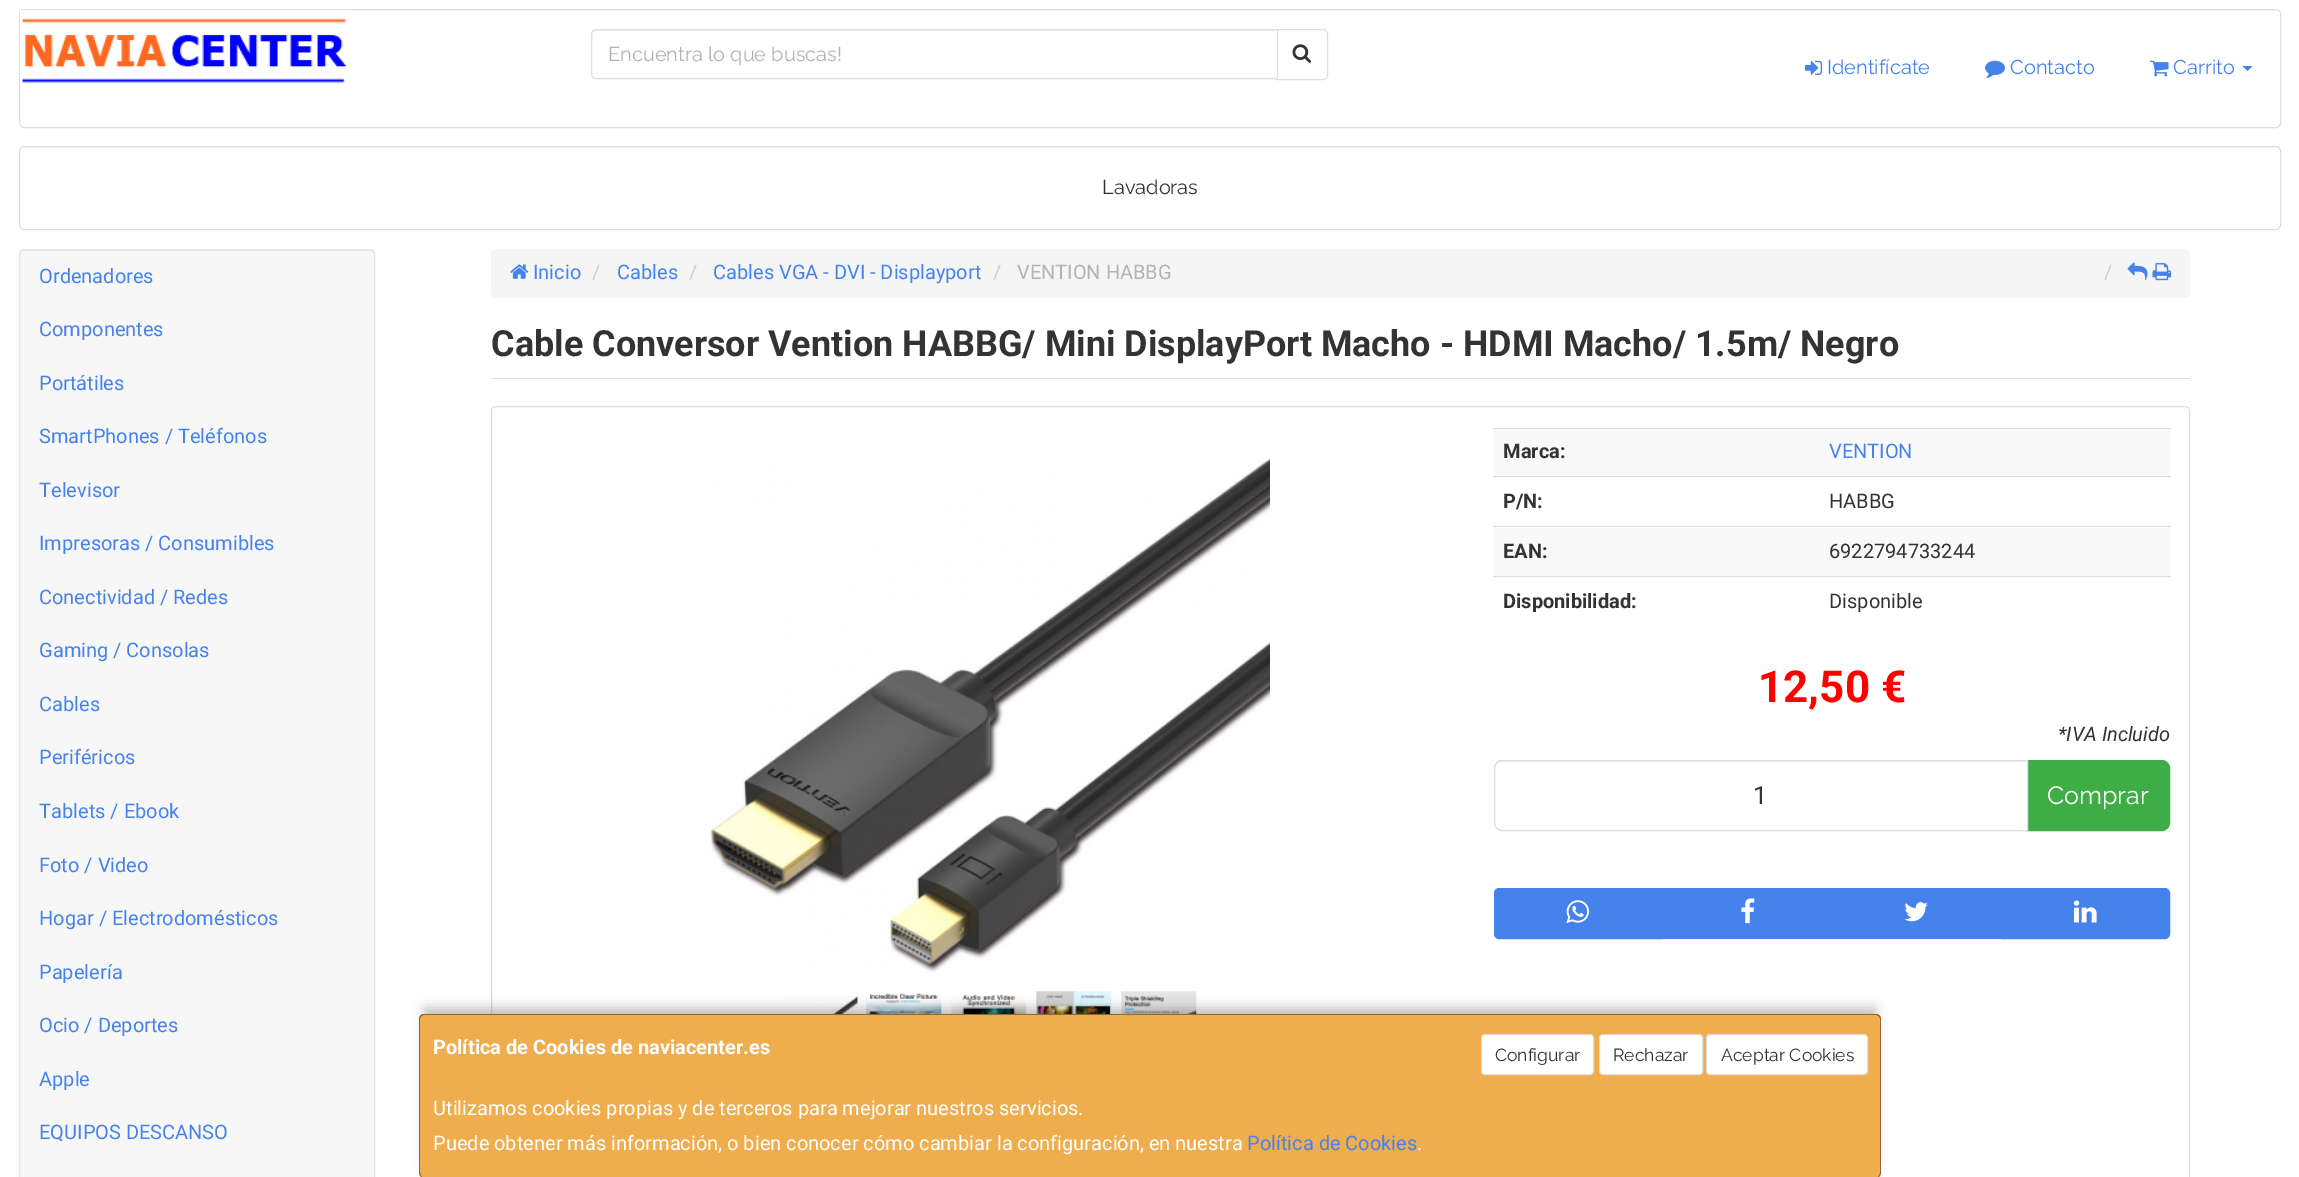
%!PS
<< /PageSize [2299 1177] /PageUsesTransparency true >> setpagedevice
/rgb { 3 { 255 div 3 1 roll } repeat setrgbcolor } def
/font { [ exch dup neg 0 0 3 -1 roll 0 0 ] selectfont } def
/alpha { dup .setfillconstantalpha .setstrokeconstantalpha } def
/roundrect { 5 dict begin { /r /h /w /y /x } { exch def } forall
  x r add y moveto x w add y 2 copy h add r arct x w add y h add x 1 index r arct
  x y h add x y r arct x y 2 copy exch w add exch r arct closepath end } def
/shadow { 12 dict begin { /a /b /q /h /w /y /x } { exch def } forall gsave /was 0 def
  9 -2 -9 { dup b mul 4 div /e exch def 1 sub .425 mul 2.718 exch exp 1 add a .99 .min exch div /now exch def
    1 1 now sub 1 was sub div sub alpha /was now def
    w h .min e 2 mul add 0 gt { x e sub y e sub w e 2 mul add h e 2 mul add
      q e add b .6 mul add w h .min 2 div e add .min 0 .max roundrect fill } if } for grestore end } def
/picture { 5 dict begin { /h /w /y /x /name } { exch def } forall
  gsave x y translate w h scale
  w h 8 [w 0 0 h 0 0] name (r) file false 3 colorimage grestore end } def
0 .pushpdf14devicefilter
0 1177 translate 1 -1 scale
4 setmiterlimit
255 255 255 rgb
0 0 2299 1177 rectfill
221 221 221 rgb
19.5 9.5 2261 118 4.5 roundrect stroke
(img/1.rgb) 20 10 327 73 picture
1276.5 29.5 moveto 1323 29.5 lineto 1325.5 29.5 1327.5 31.5 1327.5 34 curveto 1327.5 75 lineto 1327.5 77.5 1325.5 79.5 1323 79.5 curveto 1276.5 79.5 lineto closepath stroke
255 255 255 rgb
596 29 moveto 1278 29 lineto 1278 79 lineto 596 79 lineto 593 79 591 77 591 74 curveto 591 34 lineto 591 31 593 29 596 29 curveto closepath fill
236 236 236 rgb
596 31 moveto 1276 31 lineto 1276 30 lineto 597 30 lineto 596 30 594 31 594 32 curveto closepath fill
221 221 221 rgb
596 29.5 moveto 1277.5 29.5 lineto 1277.5 78.5 lineto 596 78.5 lineto 593.5 78.5 591.5 76.5 591.5 74 curveto 591.5 34 lineto 591.5 31.5 593.5 29.5 596 29.5 curveto closepath stroke
(img/2.rgb) 1292 44 20 19 picture
(img/3.rgb) 1805 60 18 15 picture
(img/4.rgb) 1985 60 20 18 picture
(img/5.rgb) 2150 60 19 17 picture
69 130 236 rgb
2242.5 66 moveto 2252.5 66 lineto 2247.5 71 lineto closepath fill
221 221 221 rgb
19.5 146.5 2261 83 4.5 roundrect stroke
247 247 247 rgb
19 249 356 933 5 roundrect fill
235 235 235 rgb
24 251 moveto 370 251 lineto 372 251 374 253 374 255 curveto 374 252 373 250 370 250 curveto 23 250 lineto 21 252 lineto 20 255 lineto 20 253 22 251 24 251 curveto closepath fill
229 229 229 rgb
19.5 249.5 355 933 4.5 roundrect stroke
245 245 245 rgb
491 249 1699 49 5 roundrect fill
(img/6.rgb) 510 264 19 15 picture
(img/7.rgb) 2127 262 21 19 picture
(img/8.rgb) 2152 263 20 18 picture
221 221 221 rgb
491 378 1699 1 rectfill
491.5 406.5 1698 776 4.5 roundrect stroke
(img/9.rgb) 710 458 560 515 picture
(img/10.rgb) 782 996 76 18 picture
(img/11.rgb) 866 993 76 21 picture
(img/12.rgb) 951 994 76 20 picture
(img/13.rgb) 1036 991 76 23 picture
(img/14.rgb) 1121 991 76 23 picture
[
  [1494 429 676 49 249 249 249]
  [1493 428 678 1 221 221 221]
  [1493 476 678 1 221 221 221]
  [1494 528 676 50 249 249 249]
  [1493 526 678 1 221 221 221]
  [1493 576 678 1 221 221 221]
] { aload pop rgb rectfill } forall
63 173 70 rgb
2026.5 760.5 moveto 2162 760.5 lineto 2166 760.5 2169.5 764 2169.5 768 curveto 2169.5 823 lineto 2169.5 827 2166 830.5 2162 830.5 curveto 2026.5 830.5 lineto closepath gsave fill grestore
stroke
255 255 255 rgb
1502 760 moveto 2028 760 lineto 2028 831 lineto 1502 831 lineto 1497.5 831 1494 827.5 1494 823 curveto 1494 768 lineto 1494 763.5 1497.5 760 1502 760 curveto closepath fill
236 236 236 rgb
1501 762 moveto 2026 762 lineto 2026 761 lineto 1501 761 lineto 1496 761 1495 765 1495 769 curveto 1495 765 1498 762 1501 762 curveto closepath fill
221 221 221 rgb
1502 760.5 moveto 2027.5 760.5 lineto 2027.5 830.5 lineto 1502 830.5 lineto 1498 830.5 1494.5 827 1494.5 823 curveto 1494.5 768 lineto 1494.5 764 1498 760.5 1502 760.5 curveto closepath stroke
69 130 236 rgb
1499 888.5 moveto 1662.5 888.5 lineto 1662.5 938.5 lineto 1499 938.5 lineto 1496.5 938.5 1494.5 936.5 1494.5 934 curveto 1494.5 893 lineto 1494.5 890.5 1496.5 888.5 1499 888.5 curveto closepath gsave fill grestore
stroke
(img/15.rgb) 1566 900 24 24 picture
1663 888 338 51 rectfill
(img/16.rgb) 1741 898 14 26 picture
2001.5 888.5 moveto 2165 888.5 lineto 2167.5 888.5 2169.5 890.5 2169.5 893 curveto 2169.5 934 lineto 2169.5 936.5 2167.5 938.5 2165 938.5 curveto 2001.5 938.5 lineto closepath gsave fill grestore
stroke
(img/17.rgb) 2073 900 24 23 picture
(img/18.rgb) 1904 902 24 20 picture
0 0 0 rgb
425 1008 1450 151 0 6 0.25 shadow
240 173 78 rgb
419 1014 1462 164 5 roundrect fill
0.4 alpha
0 0 0 rgb
424 1014 moveto 1876 1014 lineto 1879 1014 1881 1016 1881 1019 curveto 1881 1172 lineto 1881 1175 1879 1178 1876 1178 curveto 424 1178 lineto 421 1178 419 1175 419 1172 curveto 419 1019 lineto 419 1016 421 1014 424 1014 curveto closepath 424 1015 moveto 1876 1015 lineto 1878 1015 1880 1017 1880 1019 curveto 1880 1172 lineto 1880 1175 1878 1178 1876 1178 curveto 424 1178 lineto 422 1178 420 1175 420 1172 curveto 420 1019 lineto 420 1017 422 1015 424 1015 curveto closepath eofill
1 alpha
255 255 255 rgb
1481.5 1034.5 112 40 3.5 roundrect gsave fill grestore
221 221 221 rgb
stroke
255 255 255 rgb
1599.5 1034.5 103 40 3.5 roundrect gsave fill grestore
221 221 221 rgb
stroke
255 255 255 rgb
1706.5 1034.5 161 40 3.5 roundrect gsave fill grestore
221 221 221 rgb
stroke
/Raleway-Regular 20 font
179 179 179 rgb
608 61 moveto (Encuentra lo que buscas!) show
69 130 236 rgb
[
  [(Identifícate) 1827 74]
  [(Contacto) 2010 74]
  [(Carrito) 2173 74]
] { aload pop moveto show } forall
51 51 51 rgb
1102 194 moveto (Lavadoras) show
/Roboto-Regular 20 font
69 130 236 rgb
[
  [(Ordenadores) 39 283]
  [(Componentes) 39 336]
  [(Portátiles) 39 390]
  [(SmartPhones / Teléfonos) 39 443]
  [(Televisor) 39 497]
  [(Impresoras / Consumibles) 39 550]
  [(Conectividad / Redes) 39 604]
  [(Gaming / Consolas) 39 657]
  [(Cables) 39 711]
  [(Periféricos) 39 764]
  [(Tablets / Ebook) 39 818]
  [(Foto / Video) 39 872]
  [(Hogar / Electrodomésticos) 39 925]
  [(Papelería) 39 979]
  [(Ocio / Deportes) 39 1032]
  [(Apple) 39 1086]
  [(EQUIPOS DESCANSO) 39 1139]
  [(Inicio) 533 279]
] { aload pop moveto show } forall
204 204 204 rgb
592 279 moveto (/) show
69 130 236 rgb
617 279 moveto (Cables) show
204 204 204 rgb
689 279 moveto (/) show
69 130 236 rgb
713 279 moveto (Cables VGA - DVI - Displayport) show
204 204 204 rgb
993 279 moveto (/) show
179 179 179 rgb
1017 279 moveto (VENTION HABBG) show
204 204 204 rgb
2104 279 moveto (/) show
/Roboto-Bold 36 font
51 51 51 rgb
491 356 moveto (Cable Conversor Vention HABBG/ Mini DisplayPort Macho - HDMI Macho/ 1.5m/ Negro) show
/Roboto-Bold 20 font
1503 458 moveto (Marca:) show
/Roboto-Regular 20 font
69 130 236 rgb
1829 458 moveto (VENTION) show
/Roboto-Bold 20 font
51 51 51 rgb
1503 508 moveto (P/N:) show
/Roboto-Regular 20 font
1829 508 moveto (HABBG) show
/Roboto-Bold 20 font
1503 558 moveto (EAN:) show
/Roboto-Regular 20 font
1829 558 moveto (6922794733244) show
/Roboto-Bold 20 font
1503 608 moveto (Disponibilidad:) show
/Roboto-Regular 20 font
1829 608 moveto (Disponible) show
/Roboto-Bold 44 font
255 0 0 rgb
1758 702 moveto (12,50 €) show
/Roboto-Italic 20 font
51 51 51 rgb
2058 741 moveto (*IVA Incluido) show
/Roboto-Regular 25 font
1753 804 moveto (1) show
/Raleway-Regular 25 font
255 255 255 rgb
2047 804 moveto (Comprar) show
/Roboto-Bold 20 font
433 1054 moveto (Política de Cookies de naviacenter.es) show
/Raleway-Regular 17.5 font
51 51 51 rgb
[
  [(Configurar) 1495 1061]
  [(Rechazar) 1613 1061]
  [(Aceptar Cookies) 1721 1061]
] { aload pop moveto show } forall
/Roboto-Regular 20 font
255 255 255 rgb
433 1115 moveto (Utilizamos cookies propias y de terceros para mejorar nuestros servicios.) show
433 1150 moveto (Puede obtener más información, o bien conocer cómo cambiar la configuración, en nuestra) show
69 130 236 rgb
1247 1150 moveto (Política de Cookies) show
255 255 255 rgb
1417 1150 moveto (.) show
.poppdf14devicefilter showpage
